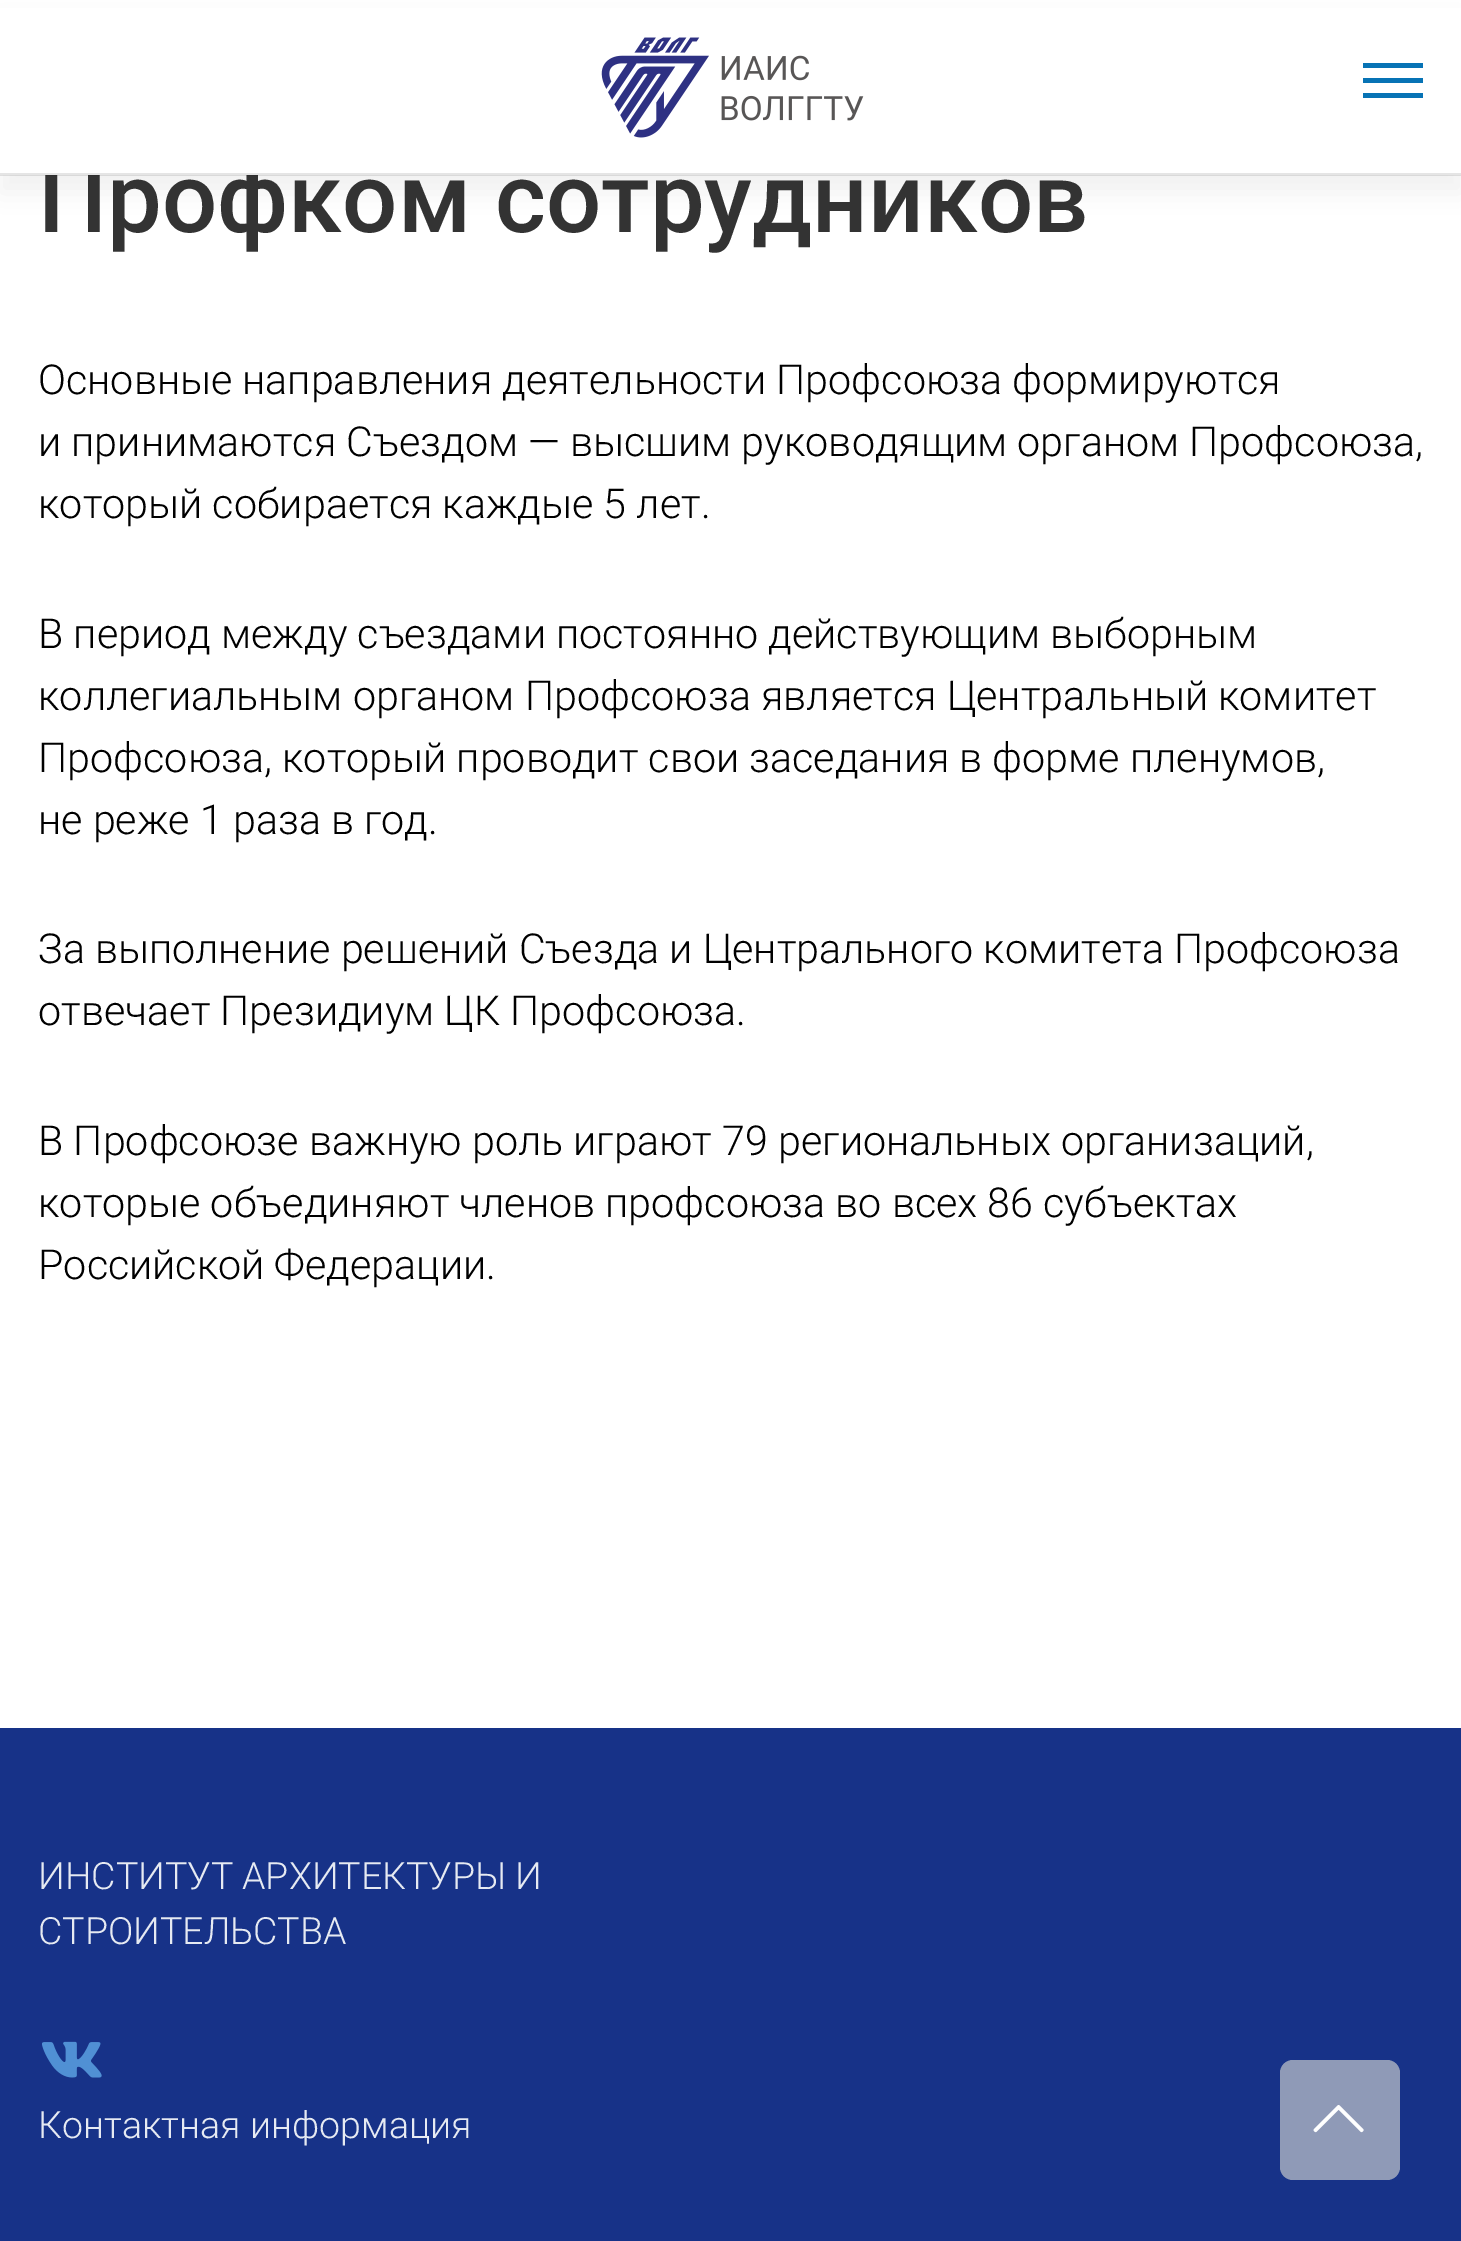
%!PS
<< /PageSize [1461 2241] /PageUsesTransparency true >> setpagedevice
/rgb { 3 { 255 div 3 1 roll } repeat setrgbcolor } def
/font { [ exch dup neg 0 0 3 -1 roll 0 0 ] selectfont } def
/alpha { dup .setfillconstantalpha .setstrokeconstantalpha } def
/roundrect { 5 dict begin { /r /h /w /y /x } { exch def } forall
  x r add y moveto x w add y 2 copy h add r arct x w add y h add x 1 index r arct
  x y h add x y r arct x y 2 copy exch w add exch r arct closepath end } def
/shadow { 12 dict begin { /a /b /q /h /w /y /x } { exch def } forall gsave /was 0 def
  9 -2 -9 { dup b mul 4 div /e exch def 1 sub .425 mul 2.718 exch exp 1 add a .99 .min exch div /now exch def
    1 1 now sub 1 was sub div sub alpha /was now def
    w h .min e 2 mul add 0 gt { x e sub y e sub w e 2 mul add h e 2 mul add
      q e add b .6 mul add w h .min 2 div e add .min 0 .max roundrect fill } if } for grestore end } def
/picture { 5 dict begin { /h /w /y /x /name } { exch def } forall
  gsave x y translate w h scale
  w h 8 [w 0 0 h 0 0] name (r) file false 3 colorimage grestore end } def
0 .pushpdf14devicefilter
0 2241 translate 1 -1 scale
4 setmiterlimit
255 255 255 rgb
0 0 1461 2241 rectfill
0 0 0 rgb
0 18 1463 175 0 12.5 0.05 shadow
23 50 136 rgb
0 1728 1461 513 rectfill
(img/2.rgb) 42 2041 60 37 picture
143 154 183 rgb
1280 2060 120 120 13 roundrect fill
(img/3.rgb) 1313 2105 51 28 picture
/Roboto-Medium 97.5 font
51 51 51 rgb
38 232 moveto (Профком сотрудников) show
[
  [0 8 1461 167 255 255 255]
  [1363 93 60 5 7 115 181]
  [1363 63 60 5 7 115 181]
  [1363 78 60 5 7 115 181]
] { aload pop rgb rectfill } forall
(img/1.rgb) 601 37 263 101 picture
0.1 alpha
0 0 0 rgb
0 173 1461 3 rectfill
/Roboto-Light 41.25 font
1 alpha
[
  [(Основные направления деятельности Профсоюза формируются) 38 394]
  [(и принимаются Съездом — высшим руководящим органом Профсоюза,) 38 456]
  [(который собирается каждые 5 лет.) 38 518]
  [(В период между съездами постоянно действующим выборным) 38 648]
  [(коллегиальным органом Профсоюза является Центральный комитет) 38 710]
  [(Профсоюза, который проводит свои заседания в форме пленумов,) 38 772]
  [(не реже 1 раза в год.) 38 834]
  [(За выполнение решений Съезда и Центрального комитета Профсоюза) 38 963]
  [(отвечает Президиум ЦК Профсоюза.) 38 1025]
  [(В Профсоюзе важную роль играют 79 региональных организаций,) 38 1155]
  [(которые объединяют членов профсоюза во всех 86 субъектах) 38 1217]
  [(Российской Федерации.) 38 1279]
] { aload pop moveto show } forall
/Roboto-Light 37.5 font
230 234 242 rgb
[
  [(ИНСТИТУТ АРХИТЕКТУРЫ И) 38 1889]
  [(СТРОИТЕЛЬСТВА) 38 1944]
  [(Контактная информация) 38 2138]
] { aload pop moveto show } forall
.poppdf14devicefilter showpage
